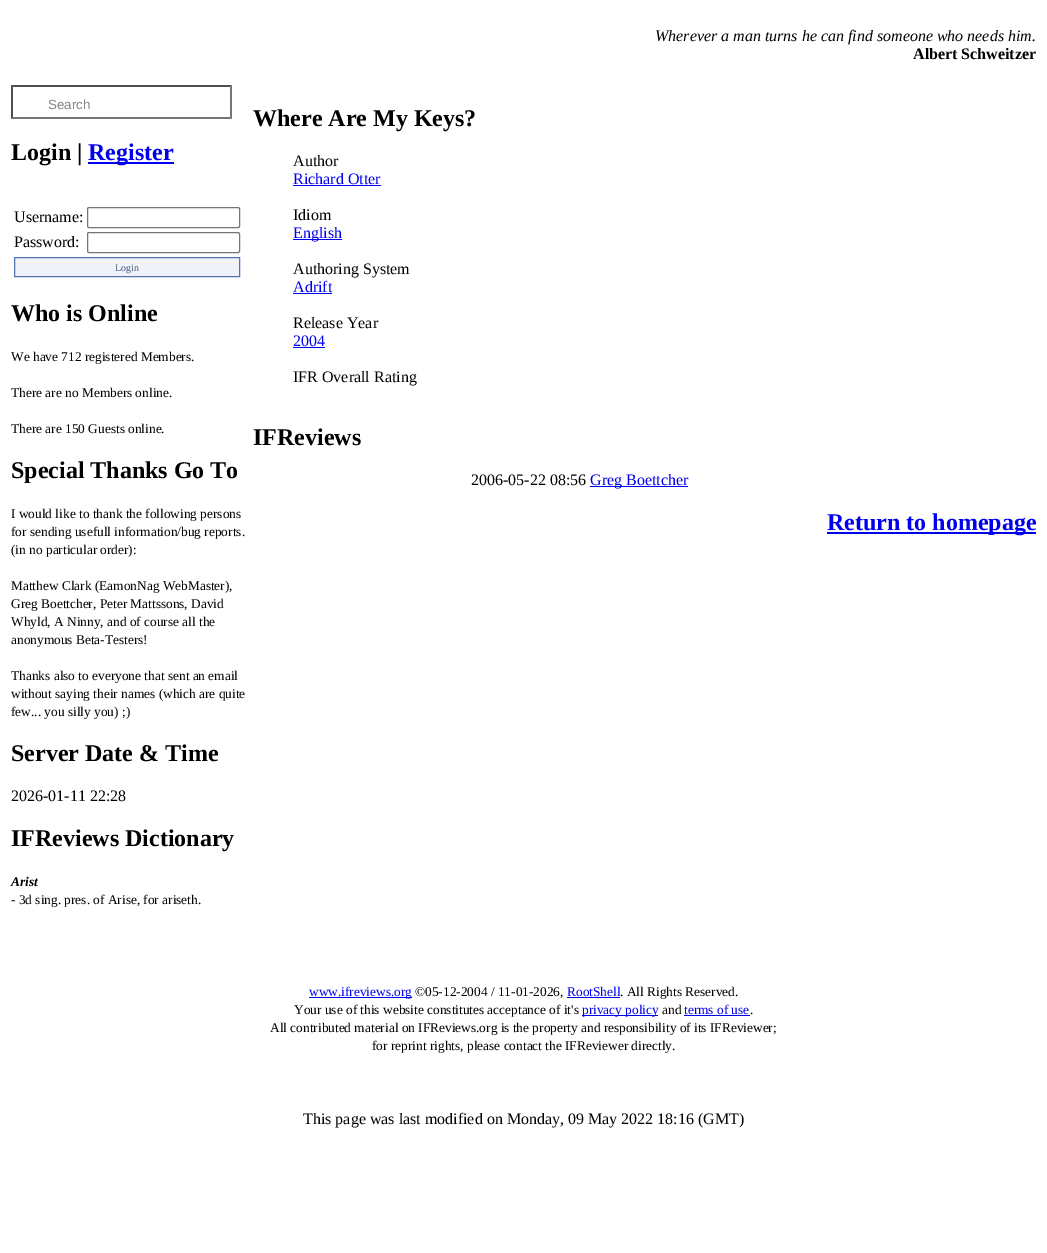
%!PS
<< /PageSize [1047 1253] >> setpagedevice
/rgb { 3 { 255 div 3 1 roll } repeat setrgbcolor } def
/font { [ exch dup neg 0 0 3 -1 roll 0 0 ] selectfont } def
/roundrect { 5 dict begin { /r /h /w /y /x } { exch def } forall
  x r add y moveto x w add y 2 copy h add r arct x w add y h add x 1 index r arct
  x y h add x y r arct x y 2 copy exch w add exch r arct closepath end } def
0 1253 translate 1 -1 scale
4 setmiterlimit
255 255 255 rgb
0 0 1047 1253 rectfill
79 79 79 rgb
11 85 moveto 232 85 lineto 230 87 lineto 13 87 lineto closepath fill
118 118 118 rgb
232 85 moveto 232 119 lineto 230 117 lineto 230 87 lineto closepath fill
232 119 moveto 11 119 lineto 13 117 lineto 230 117 lineto closepath fill
79 79 79 rgb
11 119 moveto 11 85 lineto 13 87 lineto 13 117 lineto closepath fill
0 0 238 rgb
88 162 86 2 rectfill
118 118 118 rgb
87.5 207.5 152 20 1.5 roundrect stroke
87.5 232.5 152 20 1.5 roundrect stroke
240 242 247 rgb
14.5 257.5 moveto 239.5 257.5 lineto 239.5 276.5 lineto 14.5 276.5 lineto closepath gsave fill grestore
83 116 176 rgb
stroke
[
  [293 185 88 1 0 0 238]
  [293 239 49 1 0 0 238]
  [293 293 39 1 0 0 238]
  [293 347 32 1 0 0 238]
  [590 486 98 1 0 0 238]
  [827 532 209 2 0 0 238]
  [309 997 103 1 0 0 238]
  [567 997 53 1 0 0 238]
  [582 1015 76 1 0 0 238]
  [684 1015 66 1 0 0 238]
] { aload pop rgb rectfill } forall
/LiberationSerif-Italic 16 font
0 0 0 rgb
655 41 moveto (Wherever a man turns he can find someone who needs him.) show
/LiberationSerif-Bold 16 font
913 59 moveto (Albert Schweitzer) show
/LiberationSans-Regular 13.35 font
132 132 132 rgb
48 109 moveto (Search) show
/LiberationSerif-Bold 24 font
0 0 0 rgb
11 160 moveto (Login |) show
0 0 238 rgb
88 160 moveto (Register) show
/LiberationSerif-Regular 16 font
0 0 0 rgb
14 222 moveto (Username:) show
14 247 moveto (Password:) show
/LiberationSerif-Regular 10 font
62 87 134 rgb
115 271 moveto (Login) show
/LiberationSerif-Bold 24 font
0 0 0 rgb
11 321 moveto (Who is Online) show
/LiberationSerif-Regular 13.35 font
[
  [(We have 712 registered Members.) 11 361]
  [(There are no Members online.) 11 397]
  [(There are 150 Guests online.) 11 433]
] { aload pop moveto show } forall
/LiberationSerif-Bold 24 font
11 478 moveto (Special Thanks Go To) show
/LiberationSerif-Regular 13.35 font
[
  [(I would like to thank the following persons) 11 518]
  [(for sending usefull information/bug reports.) 11 536]
  [(\(in no particular order\):) 11 554]
  [(Matthew Clark \(EamonNag WebMaster\),) 11 590]
  [(Greg Boettcher, Peter Mattssons, David) 11 608]
  [(Whyld, A Ninny, and of course all the) 11 626]
  [(anonymous Beta-Testers!) 11 644]
  [(Thanks also to everyone that sent an email) 11 680]
  [(without saying their names \(which are quite) 11 698]
  [(few... you silly you\) ;\)) 11 716]
] { aload pop moveto show } forall
/LiberationSerif-Bold 24 font
11 761 moveto (Server Date & Time) show
/LiberationSerif-Regular 16 font
11 801 moveto (2026-01-11 22:28) show
/LiberationSerif-Bold 24 font
11 846 moveto (IFReviews Dictionary) show
/LiberationSerif-BoldItalic 13.35 font
11 886 moveto (Arist) show
/LiberationSerif-Regular 13.35 font
11 904 moveto (- 3d sing. pres. of Arise, for ariseth.) show
/LiberationSerif-Bold 24 font
253 126 moveto (Where Are My Keys?) show
/LiberationSerif-Regular 16 font
293 166 moveto (Author) show
0 0 238 rgb
293 184 moveto (Richard Otter) show
0 0 0 rgb
293 220 moveto (Idiom) show
0 0 238 rgb
293 238 moveto (English) show
0 0 0 rgb
293 274 moveto (Authoring System) show
0 0 238 rgb
293 292 moveto (Adrift) show
0 0 0 rgb
293 328 moveto (Release Year) show
0 0 238 rgb
293 346 moveto (2004) show
0 0 0 rgb
293 382 moveto (IFR Overall Rating) show
/LiberationSerif-Bold 24 font
253 445 moveto (IFReviews) show
/LiberationSerif-Regular 16 font
471 485 moveto (2006-05-22 08:56) show
0 0 238 rgb
590 485 moveto (Greg Boettcher) show
/LiberationSerif-Bold 24 font
827 530 moveto (Return to homepage) show
/LiberationSerif-Regular 13.35 font
309 996 moveto (www.ifreviews.org) show
0 0 0 rgb
415 996 moveto (©05-12-2004 / 11-01-2026,) show
0 0 238 rgb
567 996 moveto (RootShell) show
0 0 0 rgb
620 996 moveto (. All Rights Reserved.) show
294 1014 moveto (Your use of this website constitutes acceptance of it's) show
0 0 238 rgb
582 1014 moveto (privacy policy) show
0 0 0 rgb
662 1014 moveto (and) show
0 0 238 rgb
684 1014 moveto (terms of use) show
0 0 0 rgb
[
  [(.) 750 1014]
  [(All contributed material on IFReviews.org is the property and responsibility of its IFReviewer;) 270 1032]
  [(for reprint rights, please contact the IFReviewer directly.) 372 1050]
] { aload pop moveto show } forall
/LiberationSerif-Regular 16 font
303 1124 moveto (This page was last modified on Monday, 09 May 2022 18:16 \(GMT\)) show
showpage
